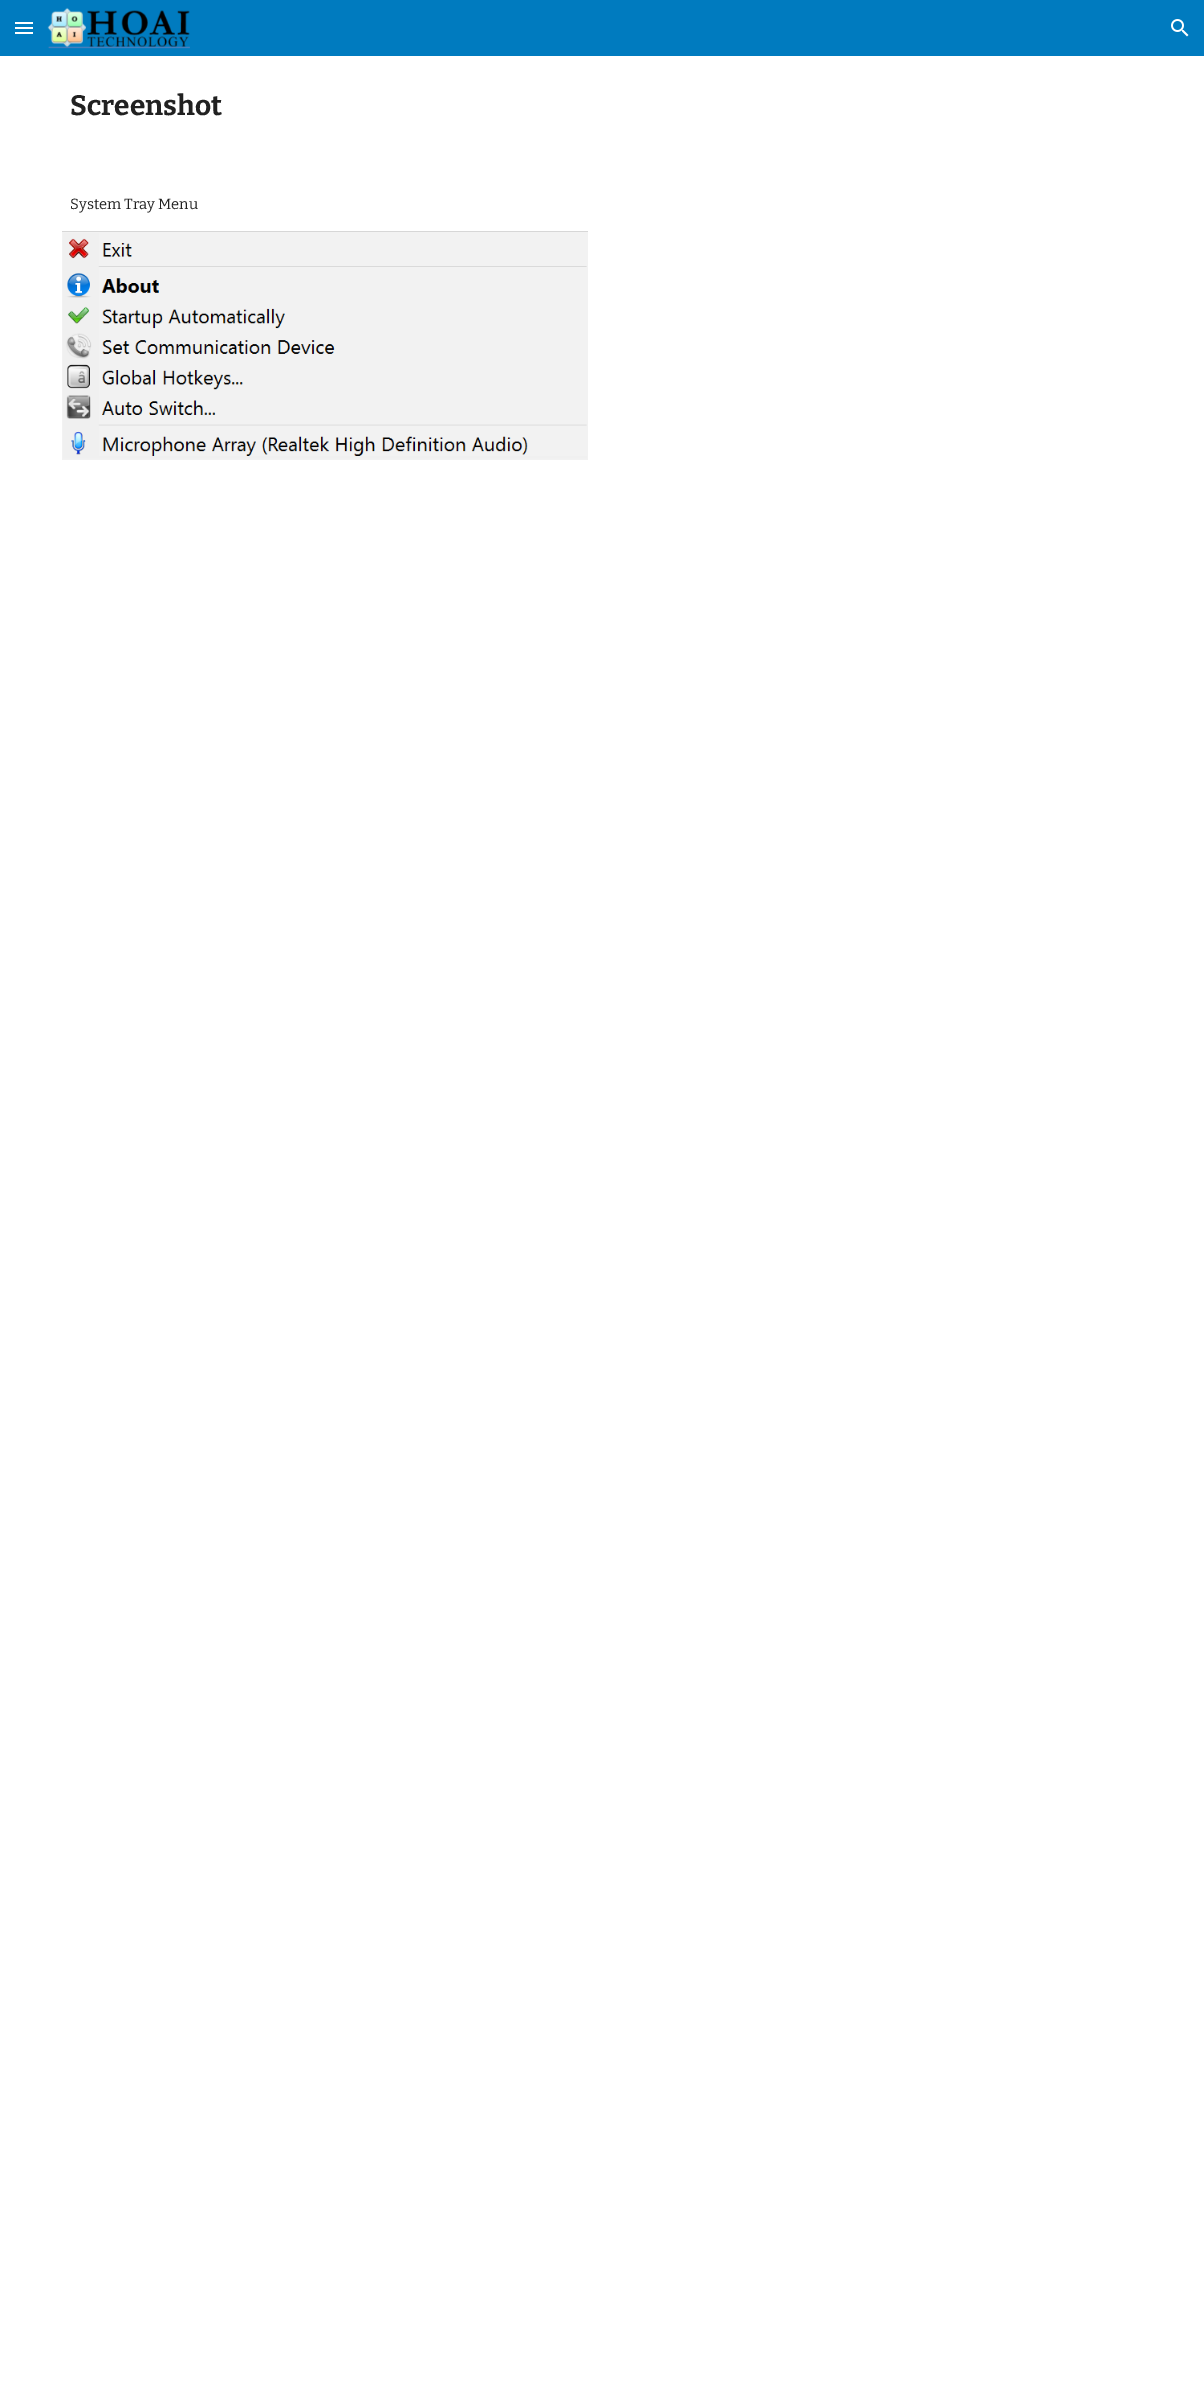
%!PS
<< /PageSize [1204 2405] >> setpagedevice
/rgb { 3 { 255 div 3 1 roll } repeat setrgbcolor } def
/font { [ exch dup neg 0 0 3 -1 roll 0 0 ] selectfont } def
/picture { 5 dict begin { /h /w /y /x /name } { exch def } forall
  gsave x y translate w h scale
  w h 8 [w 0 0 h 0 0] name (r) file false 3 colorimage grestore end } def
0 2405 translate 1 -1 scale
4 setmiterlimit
255 255 255 rgb
0 0 1204 2405 rectfill
0 123 191 rgb
0 0 1204 56 rectfill
(img/1.rgb) 47 7 143 42 picture
[
  [15 22 18 2 255 255 255]
  [15 27 18 2 255 255 255]
  [15 32 18 2 255 255 255]
] { aload pop rgb rectfill } forall
(img/2.rgb) 1171 19 18 18 picture
(img/3.rgb) 62 231 526 229 picture
/Bitter-Bold 28 font
33 33 33 rgb
70 115 moveto (Screenshot) show
/Bitter-Regular 14.75 font
70 209 moveto (System Tray Menu) show
showpage
